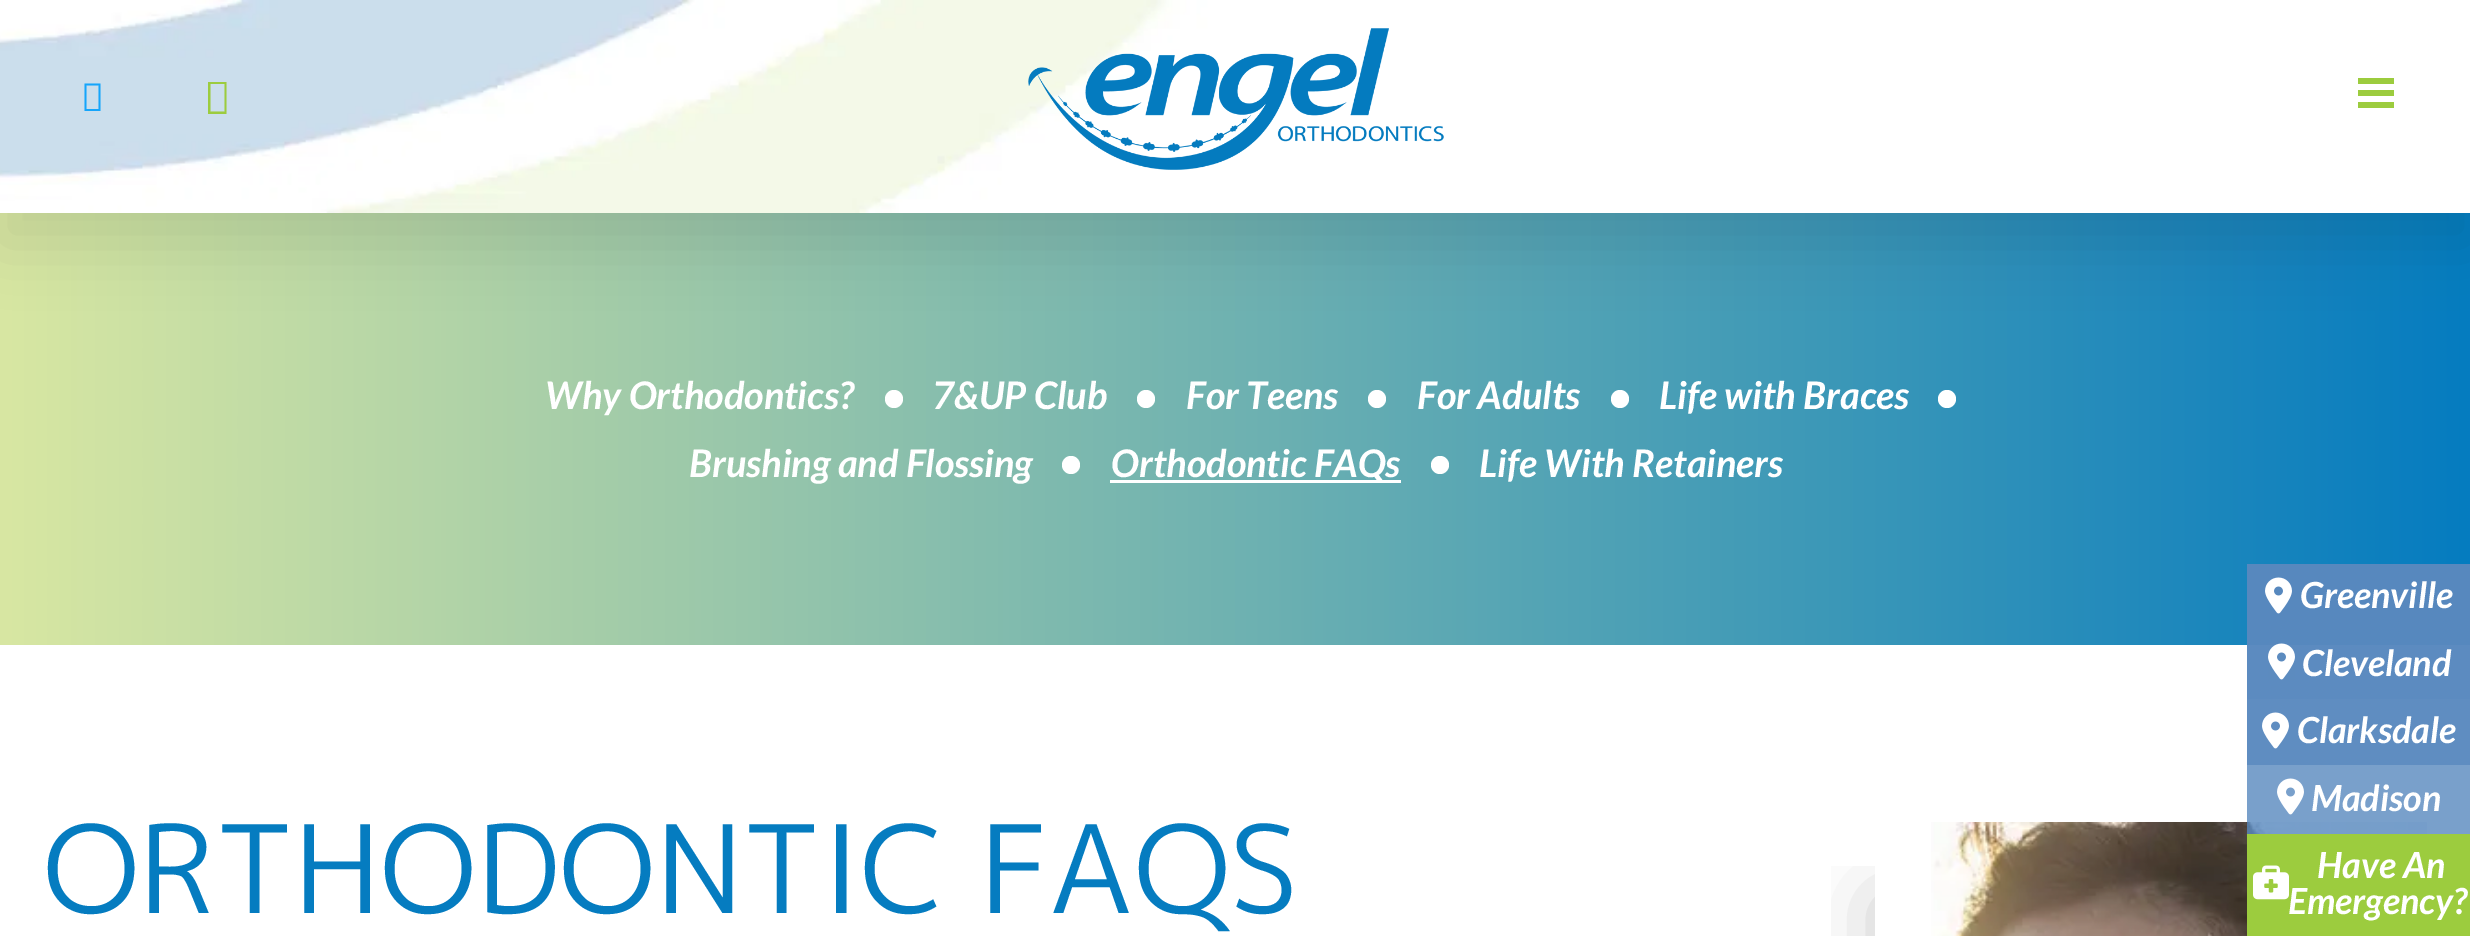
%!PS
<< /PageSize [2470 936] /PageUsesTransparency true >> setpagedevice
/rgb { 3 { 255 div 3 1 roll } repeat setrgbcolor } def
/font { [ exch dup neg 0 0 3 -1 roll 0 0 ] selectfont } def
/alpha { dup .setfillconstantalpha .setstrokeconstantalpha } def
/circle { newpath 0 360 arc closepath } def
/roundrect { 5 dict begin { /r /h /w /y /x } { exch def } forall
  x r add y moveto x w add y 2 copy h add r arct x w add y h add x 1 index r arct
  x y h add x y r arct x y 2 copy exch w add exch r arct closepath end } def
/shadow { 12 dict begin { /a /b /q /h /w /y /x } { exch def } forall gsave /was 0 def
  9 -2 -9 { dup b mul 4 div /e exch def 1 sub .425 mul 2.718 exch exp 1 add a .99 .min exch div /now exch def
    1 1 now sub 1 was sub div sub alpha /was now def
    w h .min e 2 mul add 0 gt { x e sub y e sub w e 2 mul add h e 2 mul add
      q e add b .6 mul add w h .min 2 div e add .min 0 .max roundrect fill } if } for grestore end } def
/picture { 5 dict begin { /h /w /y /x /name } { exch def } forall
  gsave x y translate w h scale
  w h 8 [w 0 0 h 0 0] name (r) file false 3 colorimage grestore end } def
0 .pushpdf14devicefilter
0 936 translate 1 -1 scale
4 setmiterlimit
255 255 255 rgb
0 0 2470 936 rectfill
gsave 0 213 moveto 2470 213 lineto 2470 645 lineto 0 645 lineto closepath clip newpath
<< /ShadingType 2 /ColorSpace /DeviceRGB /Coords [0 429 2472 429] /Extend [true true] /Function << /FunctionType 2 /Domain [0 1] /C0 [0.847 0.906 0.635] /C1 [0.02 0.486 0.753] /N 1 >> >> shfill grestore
0 0 0 rgb
0 30 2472 213 0 30 0.1 shadow
(img/1.rgb) 0 0 2470 213 picture
21 165 251 rgb
84.5 111 moveto 84.5 83.5 lineto 100.5 83.5 lineto 100.5 111 lineto closepath 86.5 109 moveto 98.5 109 lineto 98.5 85.5 lineto 86.5 85.5 lineto closepath fill
156 204 62 rgb
208 114 moveto 208 82 lineto 226.5 82 lineto 226.5 114 lineto closepath 210.5 111.5 moveto 224.5 111.5 lineto 224.5 84 lineto 210.5 84 lineto closepath fill
(img/2.rgb) 1028 28 416 142 picture
[
  [2358 78 36 6 156 204 62]
  [2358 90 36 6 156 204 62]
  [2358 102 36 6 156 204 62]
] { aload pop rgb rectfill } forall
gsave 2247 630 moveto 2470 630 lineto 2470 645 lineto 2247 645 lineto closepath clip newpath
<< /ShadingType 2 /ColorSpace /DeviceRGB /Coords [0 429 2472 429] /Extend [true true] /Function << /FunctionType 2 /Domain [0 1] /C0 [0.357 0.541 0.741] /C1 [0.337 0.533 0.745] /N 1 >> >> shfill grestore
gsave 2247 564 moveto 2470 564 lineto 2470 630 lineto 2247 630 lineto closepath clip newpath
<< /ShadingType 2 /ColorSpace /DeviceRGB /Coords [0 429 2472 429] /Extend [true true] /Function << /FunctionType 2 /Domain [0 1] /C0 [0.349 0.537 0.745] /C1 [0.341 0.533 0.745] /N 1 >> >> shfill grestore
255 255 255 rgb
894 399 9 circle fill
1146 399 9 circle fill
1377 399 9 circle fill
1620 399 9 circle fill
1947 399 9 circle fill
1071 465 9 circle fill
1110 480 291 3 rectfill
1440 465 9 circle fill
92 139 192 rgb
2247 645 223 54 rectfill
gsave
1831 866 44 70 rectclip
0 0 0 rgb
1875 897 552 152 0 37.5 0.2 shadow
grestore
(img/3.rgb) 1931 822 496 114 picture
(img/4.rgb) 2265 577 27 37 picture
(img/5.rgb) 2268 643 27 37 picture
95 141 193 rgb
2247 699 223 66 rectfill
(img/6.rgb) 2262 712 27 37 picture
0.8 alpha
88 136 190 rgb
2247 765 223 69 rectfill
1 alpha
(img/7.rgb) 2277 778 27 37 picture
156 204 62 rgb
2247 834 223 102 rectfill
(img/8.rgb) 2253 865 36 35 picture
/Lato-BoldItalic 38 font
255 255 255 rgb
[
  [(Why Orthodontics?) 545 409]
  [(7&UP Club) 932 409]
  [(For Teens) 1186 409]
  [(For Adults) 1417 409]
  [(Life with Braces) 1659 409]
  [(Brushing and Flossing) 689 477]
  [(Orthodontic FAQs) 1111 477]
  [(Life With Retainers) 1479 477]
] { aload pop moveto show } forall
/MPLUS1p-Regular 121.5 font
5 124 192 rgb
43 913 moveto (ORTHODONTIC FAQS) show
/Lato-BoldItalic 36 font
255 255 255 rgb
[
  [(Greenville) 2300 608]
  [(Cleveland) 2302 676]
  [(Clarksdale) 2297 743]
  [(Madison) 2311 811]
  [(Have An) 2317 878]
  [(Emergency?) 2288 914]
] { aload pop moveto show } forall
.poppdf14devicefilter showpage
